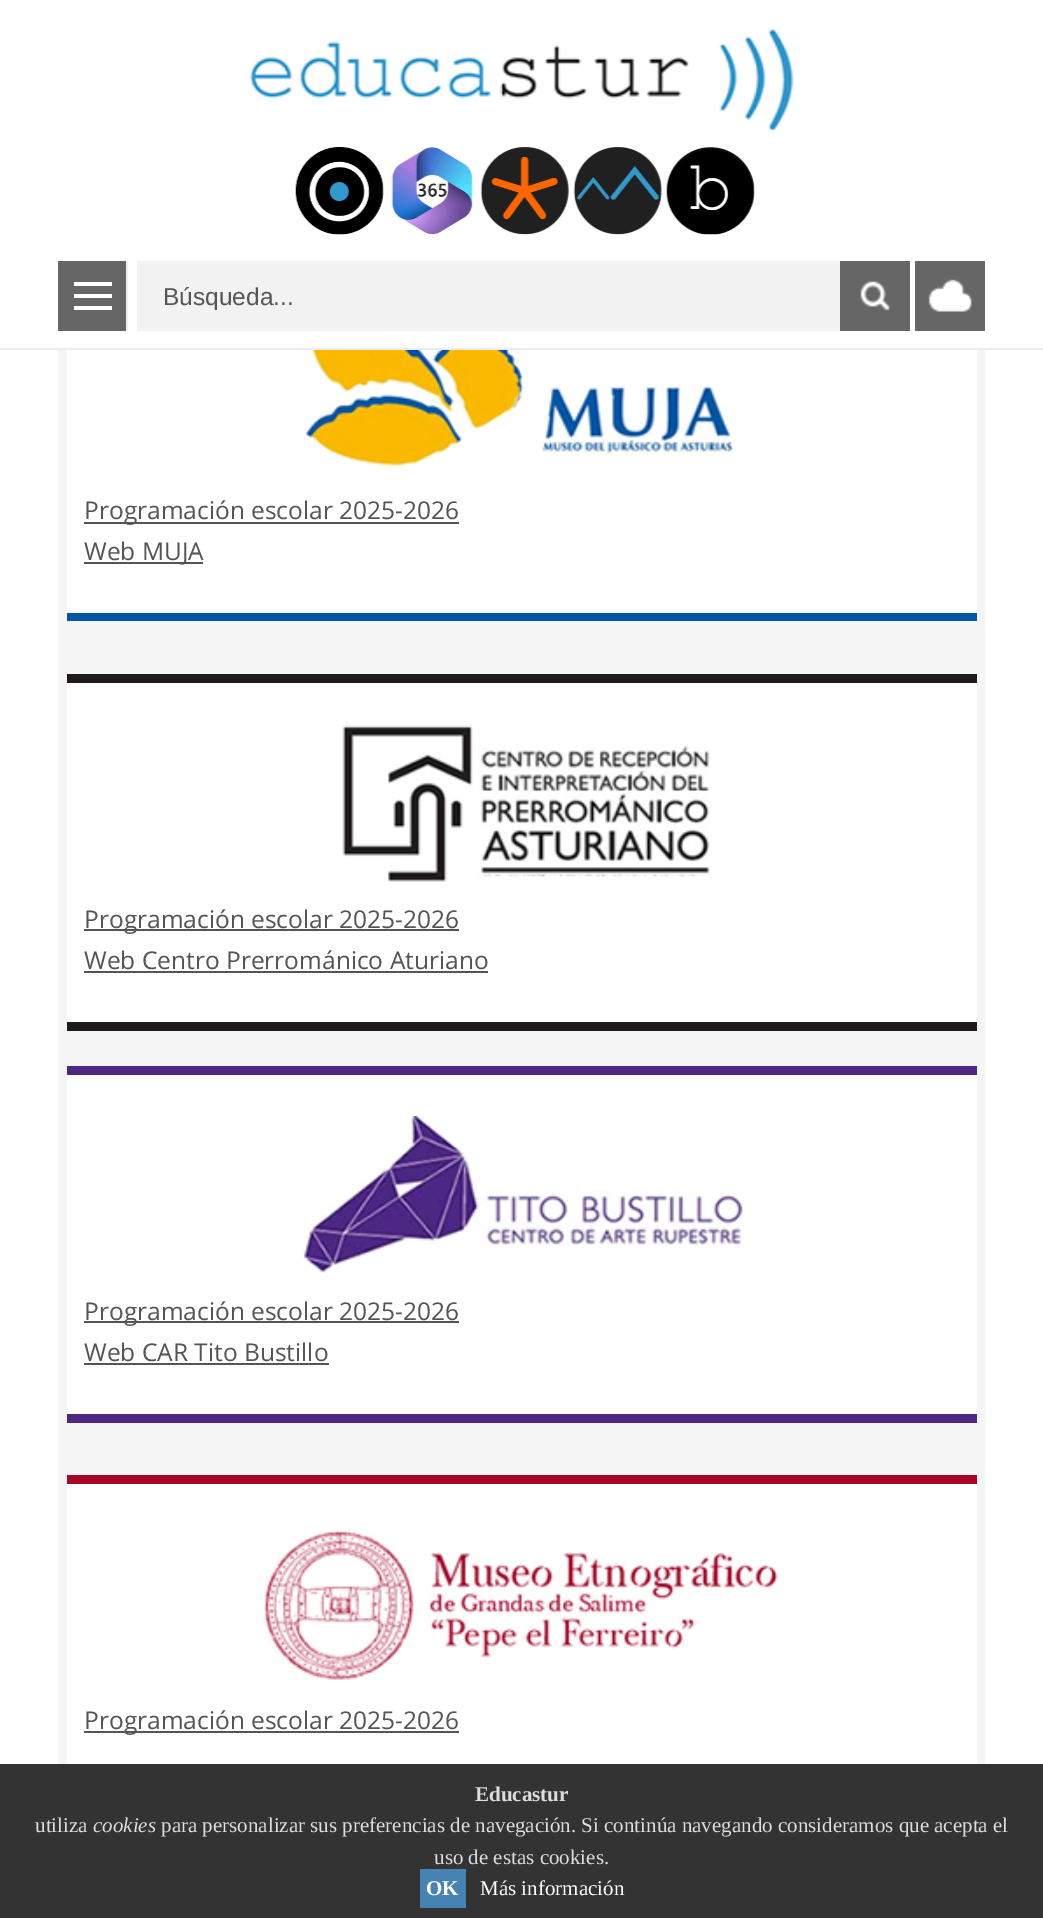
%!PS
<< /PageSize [1043 1918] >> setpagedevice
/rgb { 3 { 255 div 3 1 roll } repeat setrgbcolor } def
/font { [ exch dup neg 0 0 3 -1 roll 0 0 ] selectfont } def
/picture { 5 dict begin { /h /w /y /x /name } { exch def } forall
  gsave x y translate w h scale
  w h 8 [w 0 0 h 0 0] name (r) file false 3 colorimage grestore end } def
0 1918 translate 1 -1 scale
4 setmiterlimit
255 255 255 rgb
0 0 1043 1918 rectfill
236 236 236 rgb
0 348 1043 2 rectfill
(img/1.rgb) 249 29 545 103 picture
(img/2.rgb) 295 147 89 88 picture
(img/3.rgb) 391 147 82 88 picture
(img/4.rgb) 480 147 89 88 picture
(img/5.rgb) 573 147 89 88 picture
(img/6.rgb) 666 147 89 88 picture
[
  [58 261 68 70 102 102 102]
  [126 261 2 70 239 239 239]
  [74 282 38 4 255 255 255]
  [74 294 38 4 255 255 255]
  [74 306 38 4 255 255 255]
  [137 261 703 70 242 242 242]
  [840 261 70 70 102 102 102]
] { aload pop rgb rectfill } forall
(img/7.rgb) 860 281 30 30 picture
915 261 70 70 rectfill
(img/8.rgb) 928 279 44 33 picture
[
  [58 350 927 1414 245 245 245]
  [67 350 910 263 255 255 255]
  [67 613 910 8 1 87 164]
] { aload pop rgb rectfill } forall
(img/9.rgb) 305 350 429 116 picture
[
  [84 522 375 2 85 85 85]
  [84 562 119 2 85 85 85]
  [67 683 910 339 255 255 255]
  [67 674 910 9 31 27 28]
  [67 1022 910 9 31 27 28]
] { aload pop rgb rectfill } forall
(img/10.rgb) 342 725 368 157 picture
[
  [84 929 375 2 85 85 85]
  [84 971 404 2 85 85 85]
  [67 1075 910 339 255 255 255]
  [67 1066 910 9 78 39 132]
  [67 1414 910 9 78 39 132]
] { aload pop rgb rectfill } forall
(img/11.rgb) 303 1116 440 157 picture
[
  [84 1321 375 2 85 85 85]
  [84 1363 245 2 85 85 85]
  [67 1484 910 280 255 255 255]
  [67 1475 910 9 165 6 42]
] { aload pop rgb rectfill } forall
(img/12.rgb) 264 1530 514 150 picture
[
  [84 1731 375 2 85 85 85]
  [0 1764 1043 154 51 51 51]
  [420 1869 46 39 70 130 180]
] { aload pop rgb rectfill } forall
/LiberationSans-Regular 24.5 font
85 85 85 rgb
163 305 moveto (Búsqueda...) show
/OpenSans-Regular 24.5 font
[
  [(Programación escolar 2025-2026) 84 519]
  [(Web MUJA) 84 560]
  [(Programación escolar 2025-2026) 84 928]
  [(Web Centro Prerrománico Aturiano) 84 969]
  [(Programación escolar 2025-2026) 84 1320]
  [(Web CAR Tito Bustillo) 84 1361]
  [(Programación escolar 2025-2026) 84 1729]
] { aload pop moveto show } forall
/LiberationSerif-Bold 21 font
221 221 221 rgb
475 1801 moveto (Educastur) show
/LiberationSerif-Regular 21 font
35 1832 moveto (utiliza) show
/LiberationSerif-Italic 21 font
93 1832 moveto (cookies) show
/LiberationSerif-Regular 21 font
161 1832 moveto (para personalizar sus preferencias de navegación. Si continúa navegando consideramos que acepta el) show
434 1864 moveto (uso de estas cookies.) show
/LiberationSerif-Bold 21 font
255 255 255 rgb
426 1895 moveto (OK) show
/LiberationSerif-Regular 21 font
480 1895 moveto (Más información) show
showpage
